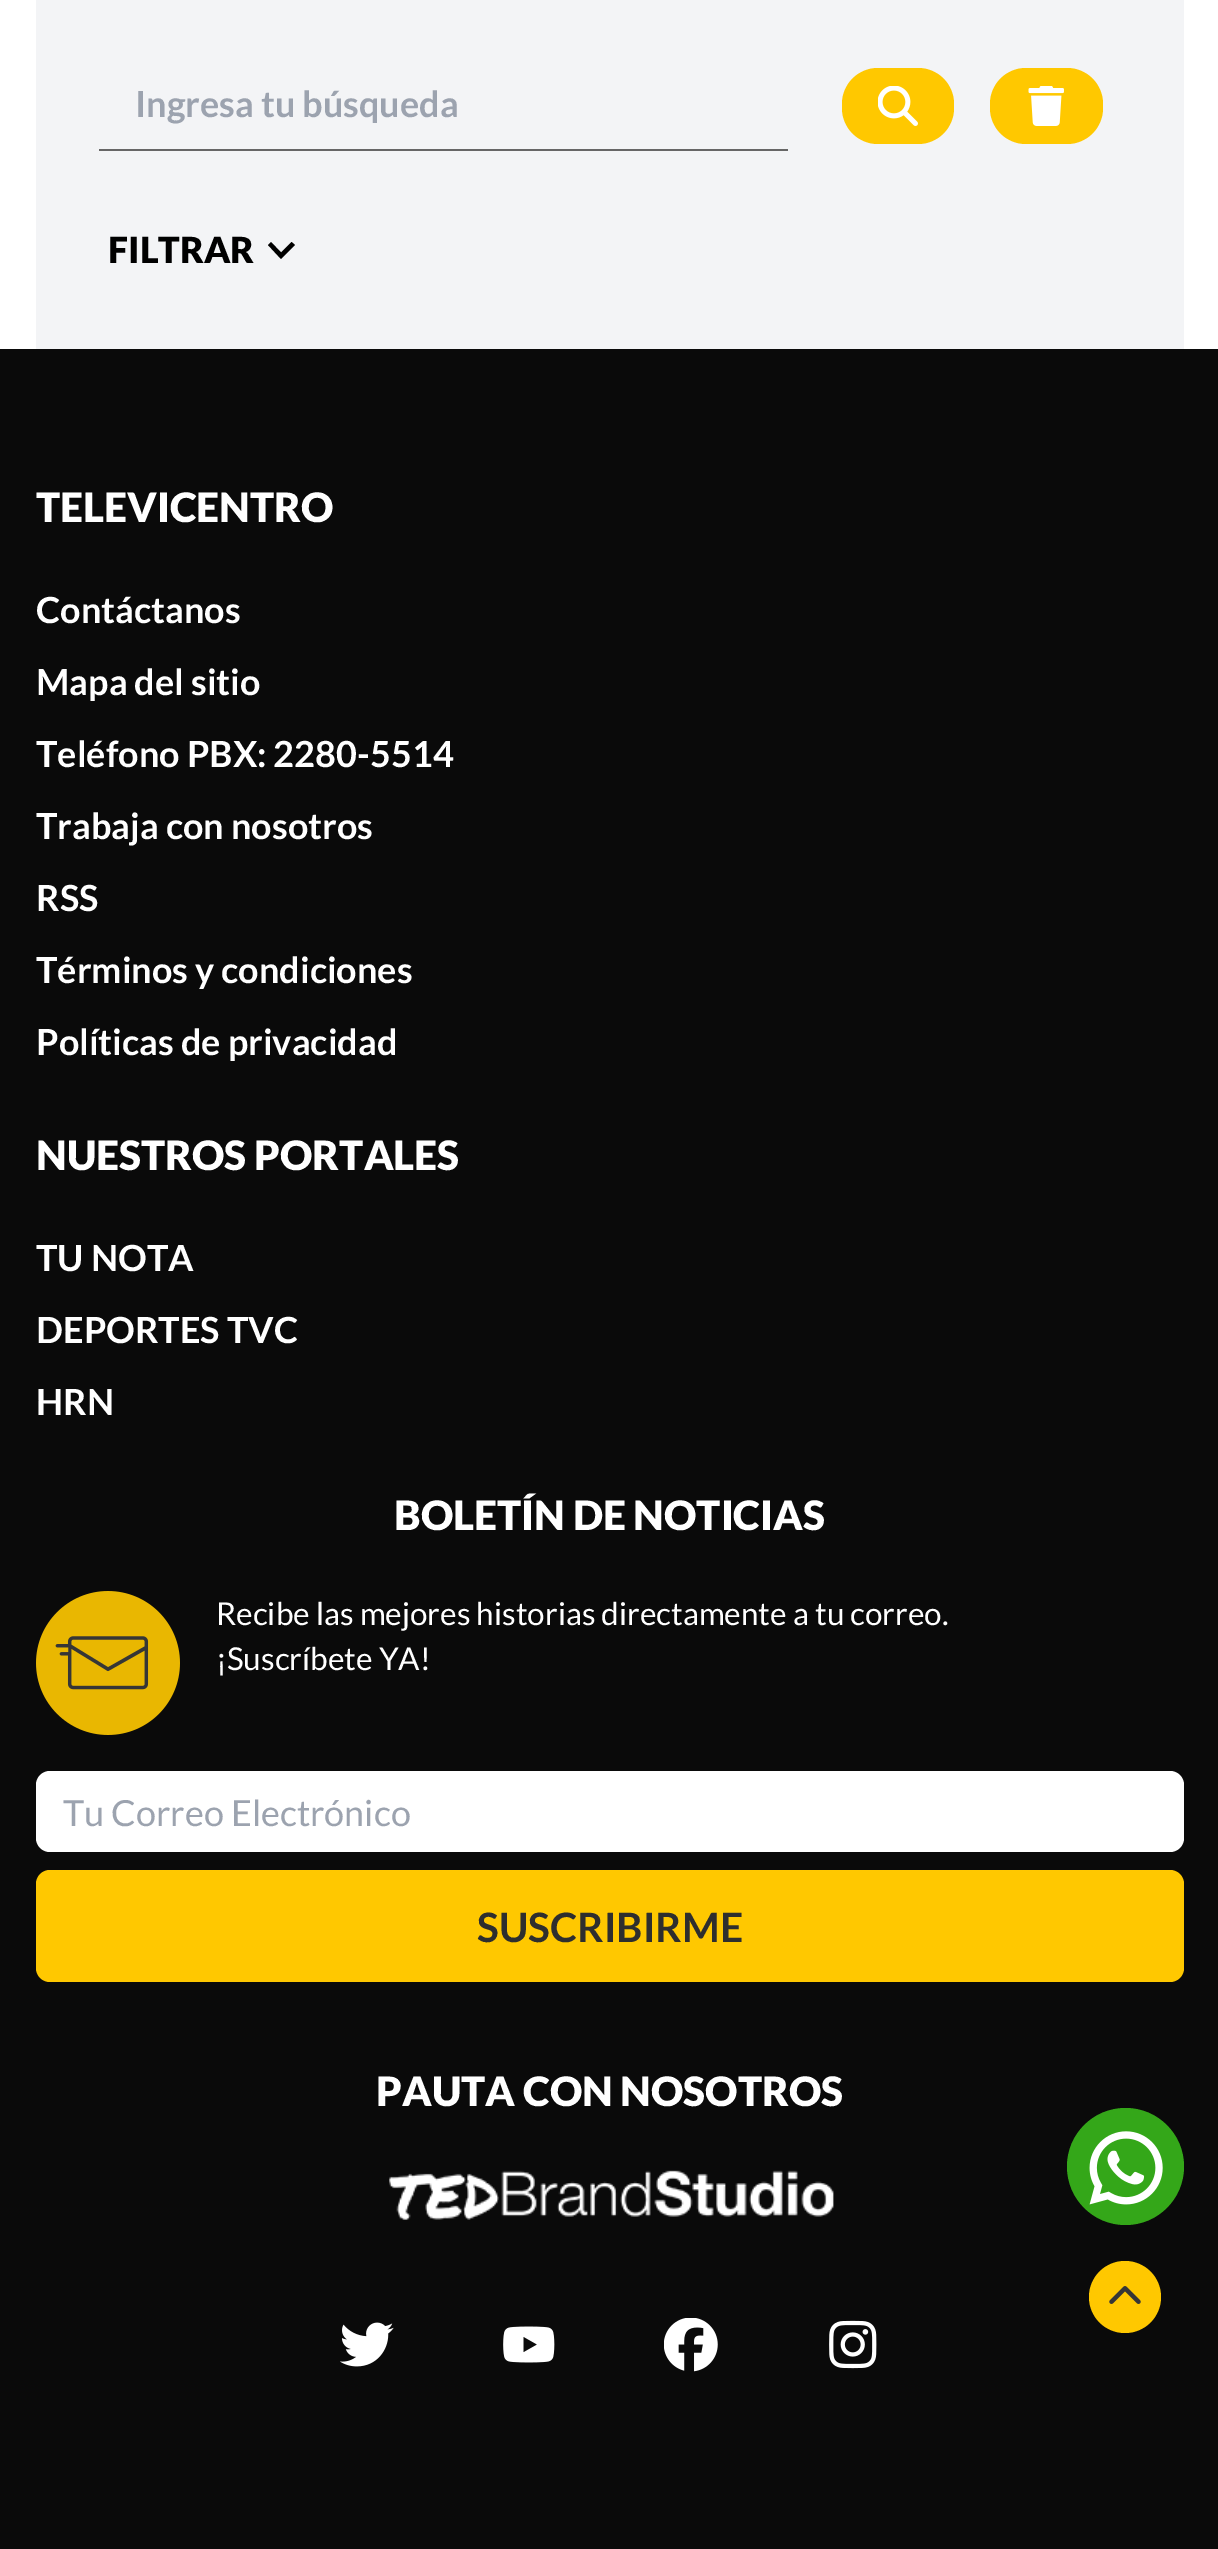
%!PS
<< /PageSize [1218 2549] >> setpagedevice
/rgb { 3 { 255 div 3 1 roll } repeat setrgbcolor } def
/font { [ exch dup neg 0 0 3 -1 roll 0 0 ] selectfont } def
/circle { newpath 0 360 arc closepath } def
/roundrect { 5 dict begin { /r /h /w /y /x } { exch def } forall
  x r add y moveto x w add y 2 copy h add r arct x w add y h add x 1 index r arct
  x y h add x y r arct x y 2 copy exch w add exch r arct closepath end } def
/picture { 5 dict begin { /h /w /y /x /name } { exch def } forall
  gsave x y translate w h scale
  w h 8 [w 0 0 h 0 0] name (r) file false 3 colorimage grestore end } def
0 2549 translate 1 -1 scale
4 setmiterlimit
255 255 255 rgb
0 0 1218 2549 rectfill
243 244 246 rgb
36 0 1148 349 rectfill
102 102 102 rgb
99 149 689 2 rectfill
255 200 0 rgb
842 68 112 76 36 roundrect fill
(img/1.rgb) 878 86 40 40 picture
990 68 113 76 36 roundrect fill
(img/2.rgb) 1028 86 36 40 picture
0 0 0 rgb
271 242 moveto 281 252.5 lineto 291.5 242 lineto 295 245 lineto 281 259 lineto 268 245 lineto closepath fill
10 10 10 rgb
0 349 1218 2200 rectfill
(img/3.rgb) 36 1591 144 144 picture
255 255 255 rgb
36 1771 1148 81 14 roundrect fill
255 200 0 rgb
36 1870 1148 112 14 roundrect fill
(img/4.rgb) 389 2170 445 50 picture
(img/5.rgb) 340 2322 54 45 picture
(img/6.rgb) 503 2326 52 37 picture
(img/7.rgb) 664 2318 54 54 picture
(img/8.rgb) 829 2320 48 49 picture
52 167 25 rgb
1125.5 2166.5 58.5 circle fill
(img/9.rgb) 1089 2131 74 74 picture
255 200 0 rgb
1125 2297 36 circle fill
(img/10.rgb) 1109 2286 32 18 picture
/Lato-Bold 36 font
156 163 175 rgb
135 117 moveto (Ingresa tu búsqueda) show
/Lato-Black 36 font
0 0 0 rgb
108 263 moveto (FILTRAR) show
/Lato-Black 40.5 font
255 255 255 rgb
36 522 moveto (TELEVICENTRO) show
/Lato-Bold 36 font
[
  [(Contáctanos) 36 623]
  [(Mapa del sitio) 36 695]
  [(Teléfono PBX: 2280-5514) 36 767]
  [(Trabaja con nosotros) 36 839]
  [(RSS) 36 911]
  [(Términos y condiciones) 36 983]
  [(Políticas de privacidad) 36 1055]
] { aload pop moveto show } forall
/Lato-Black 40.5 font
36 1170 moveto (NUESTROS PORTALES) show
/Lato-Bold 36 font
[
  [(TU NOTA) 36 1271]
  [(DEPORTES TVC) 36 1343]
  [(HRN) 36 1415]
] { aload pop moveto show } forall
/Lato-Black 40.5 font
394 1530 moveto (BOLETÍN DE NOTICIAS) show
/Lato-Regular 31.5 font
216 1625 moveto (Recibe las mejores historias directamente a tu correo.) show
216 1670 moveto (¡Suscríbete YA!) show
/Lato-Regular 36 font
156 163 175 rgb
63 1826 moveto (Tu Correo Electrónico) show
/Lato-Bold 40.5 font
46 46 46 rgb
477 1942 moveto (SUSCRIBIRME) show
/Lato-Black 40.5 font
255 255 255 rgb
376 2106 moveto (PAUTA CON NOSOTROS) show
showpage
